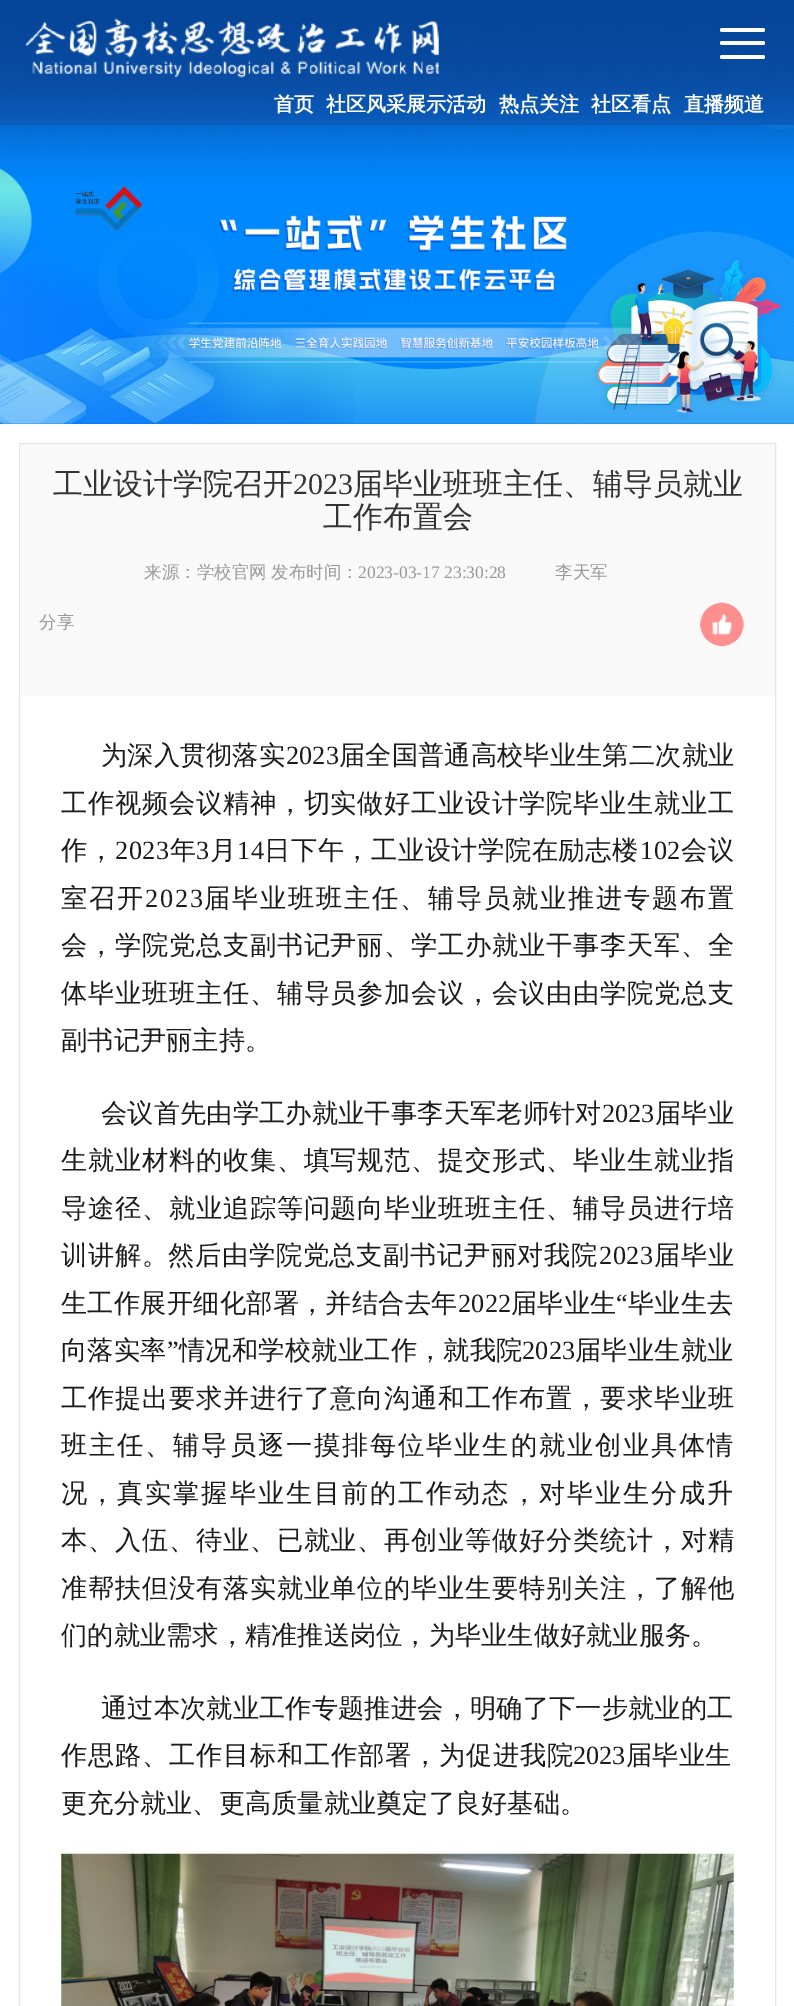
%!PS
<< /PageSize [794 2006] >> setpagedevice
/rgb { 3 { 255 div 3 1 roll } repeat setrgbcolor } def
/font { [ exch dup neg 0 0 3 -1 roll 0 0 ] selectfont } def
/roundrect { 5 dict begin { /r /h /w /y /x } { exch def } forall
  x r add y moveto x w add y 2 copy h add r arct x w add y h add x 1 index r arct
  x y h add x y r arct x y 2 copy exch w add exch r arct closepath end } def
/picture { 5 dict begin { /h /w /y /x /name } { exch def } forall
  gsave x y translate w h scale
  w h 8 [w 0 0 h 0 0] name (r) file false 3 colorimage grestore end } def
0 2006 translate 1 -1 scale
4 setmiterlimit
255 255 255 rgb
0 0 794 2006 rectfill
8 108 210 rgb
0 0 794 424 rectfill
(img/1.rgb) 0 125 794 299 picture
(img/2.rgb) 0 0 794 185 picture
(img/3.rgb) 25 18 414 60 picture
255 255 255 rgb
720 28 45 4 2 roundrect fill
720 41 45 4 2 roundrect fill
720 55 45 4 2 roundrect fill
229 229 229 rgb
19.5 443.5 756 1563 rectstroke
249 249 249 rgb
20 444 755 252 rectfill
(img/4.rgb) 700 602 44 45 picture
(img/5.rgb) 61 1853 673 153 picture
/WenQuanYiZenHei-Bold 20 font
255 255 255 rgb
[
  [(首页) 274 111]
  [(社区风采展示活动) 326 111]
  [(热点关注) 499 111]
  [(社区看点) 591 111]
  [(直播频道) 684 111]
] { aload pop moveto show } forall
/WenQuanYiZenHei-Medium 30 font
51 51 51 rgb
53 494 moveto (工业设计学院召开) show
/LiberationSerif-Regular 30 font
293 494 moveto (2023) show
/WenQuanYiZenHei-Medium 30 font
353 494 moveto (届毕业班班主任、辅导员就业) show
323 527 moveto (工作布置会) show
/WenQuanYiZenHei-Medium 17.5 font
153 153 153 rgb
144 578 moveto (来源：学校官网) show
271 578 moveto (发布时间：) show
/LiberationSerif-Regular 17.5 font
358 578 moveto (2023-03-17 23:30:28) show
/WenQuanYiZenHei-Medium 17.5 font
555 578 moveto (李天军) show
39 628 moveto (分享) show
/WenQuanYiZenHei-Medium 26.25 font
27 27 27 rgb
101 764 moveto (为深入贯彻落实) show
/LiberationSerif-Regular 26.25 font
286 764 moveto 0.1 0 (2023) ashow
/WenQuanYiZenHei-Medium 26.25 font
339 764 moveto 0.1 0 (届全国普通高校毕业生第二次就业) ashow
61 812 moveto 0.7 0 (工作视频会议精神，切实做好工业设计学院毕业生就业工) ashow
61 859 moveto 0.5 0 (作，) ashow
/LiberationSerif-Regular 26.25 font
115 859 moveto 0.5 0 (2023) ashow
/WenQuanYiZenHei-Medium 26.25 font
170 859 moveto 0.5 0 (年) ashow
/LiberationSerif-Regular 26.25 font
196 859 moveto 0.5 0 (3) ashow
/WenQuanYiZenHei-Medium 26.25 font
210 859 moveto 0.5 0 (月) ashow
/LiberationSerif-Regular 26.25 font
237 859 moveto 0.5 0 (14) ashow
/WenQuanYiZenHei-Medium 26.25 font
264 859 moveto 0.5 0 (日下午，工业设计学院在励志楼) ashow
/LiberationSerif-Regular 26.25 font
640 859 moveto 0.5 0 (102) ashow
/WenQuanYiZenHei-Medium 26.25 font
681 859 moveto 0.5 0 (会议) ashow
61 907 moveto 1.75 0 (室召开) ashow
/LiberationSerif-Regular 26.25 font
145 907 moveto 1.75 0 (2023) ashow
/WenQuanYiZenHei-Medium 26.25 font
204 907 moveto 1.75 0 (届毕业班班主任、辅导员就业推进专题布置) ashow
61 954 moveto 0.7 0 (会，学院党总支副书记尹丽、学工办就业干事李天军、全) ashow
61 1002 moveto 0.7 0 (体毕业班班主任、辅导员参加会议，会议由由学院党总支) ashow
61 1049 moveto (副书记尹丽主持。) show
101 1122 moveto 0.1 0 (会议首先由学工办就业干事李天军老师针对) ashow
/LiberationSerif-Regular 26.25 font
602 1122 moveto (2023) show
/WenQuanYiZenHei-Medium 26.25 font
655 1122 moveto (届毕业) show
61 1169 moveto 0.7 0 (生就业材料的收集、填写规范、提交形式、毕业生就业指) ashow
61 1217 moveto 0.7 0 (导途径、就业追踪等问题向毕业班班主任、辅导员进行培) ashow
61 1264 moveto 0.6 0 (训讲解。然后由学院党总支副书记尹丽对我院) ashow
/LiberationSerif-Regular 26.25 font
599 1264 moveto 0.6 0 (2023) ashow
/WenQuanYiZenHei-Medium 26.25 font
654 1264 moveto 0.6 0 (届毕业) ashow
61 1312 moveto 0.2 0 (生工作展开细化部署，并结合去年) ashow
/LiberationSerif-Regular 26.25 font
458 1312 moveto 0.2 0 (2022) ashow
/WenQuanYiZenHei-Medium 26.25 font
511 1312 moveto 0.2 0 (届毕业生) ashow
/LiberationSerif-Regular 26.25 font
616 1312 moveto 0.2 0 (“) ashow
/WenQuanYiZenHei-Medium 26.25 font
628 1312 moveto 0.2 0 (毕业生去) ashow
61 1359 moveto 0.2 0 (向落实率) ashow
/LiberationSerif-Regular 26.25 font
167 1359 moveto 0.2 0 (”) ashow
/WenQuanYiZenHei-Medium 26.25 font
179 1359 moveto 0.2 0 (情况和学校就业工作，就我院) ashow
/LiberationSerif-Regular 26.25 font
522 1359 moveto 0.2 0 (2023) ashow
/WenQuanYiZenHei-Medium 26.25 font
575 1359 moveto 0.2 0 (届毕业生就业) ashow
61 1407 moveto 0.7 0 (工作提出要求并进行了意向沟通和工作布置，要求毕业班) ashow
61 1454 moveto 1.85 0 (班主任、辅导员逐一摸排每位毕业生的就业创业具体情) ashow
61 1502 moveto 1.85 0 (况，真实掌握毕业生目前的工作动态，对毕业生分成升) ashow
61 1549 moveto 0.7 0 (本、入伍、待业、已就业、再创业等做好分类统计，对精) ashow
61 1597 moveto 0.7 0 (准帮扶但没有落实就业单位的毕业生要特别关注，了解他) ashow
61 1644 moveto (们的就业需求，精准推送岗位，为毕业生做好就业服务。) show
101 1717 moveto 0.1 0 (通过本次就业工作专题推进会，明确了下一步就业的工) ashow
61 1764 moveto 0.75 0 (作思路、工作目标和工作部署，为促进我院) ashow
/LiberationSerif-Regular 26.25 font
573 1764 moveto (2023) show
/WenQuanYiZenHei-Medium 26.25 font
626 1764 moveto (届毕业生) show
61 1812 moveto (更充分就业、更高质量就业奠定了良好基础。) show
showpage
